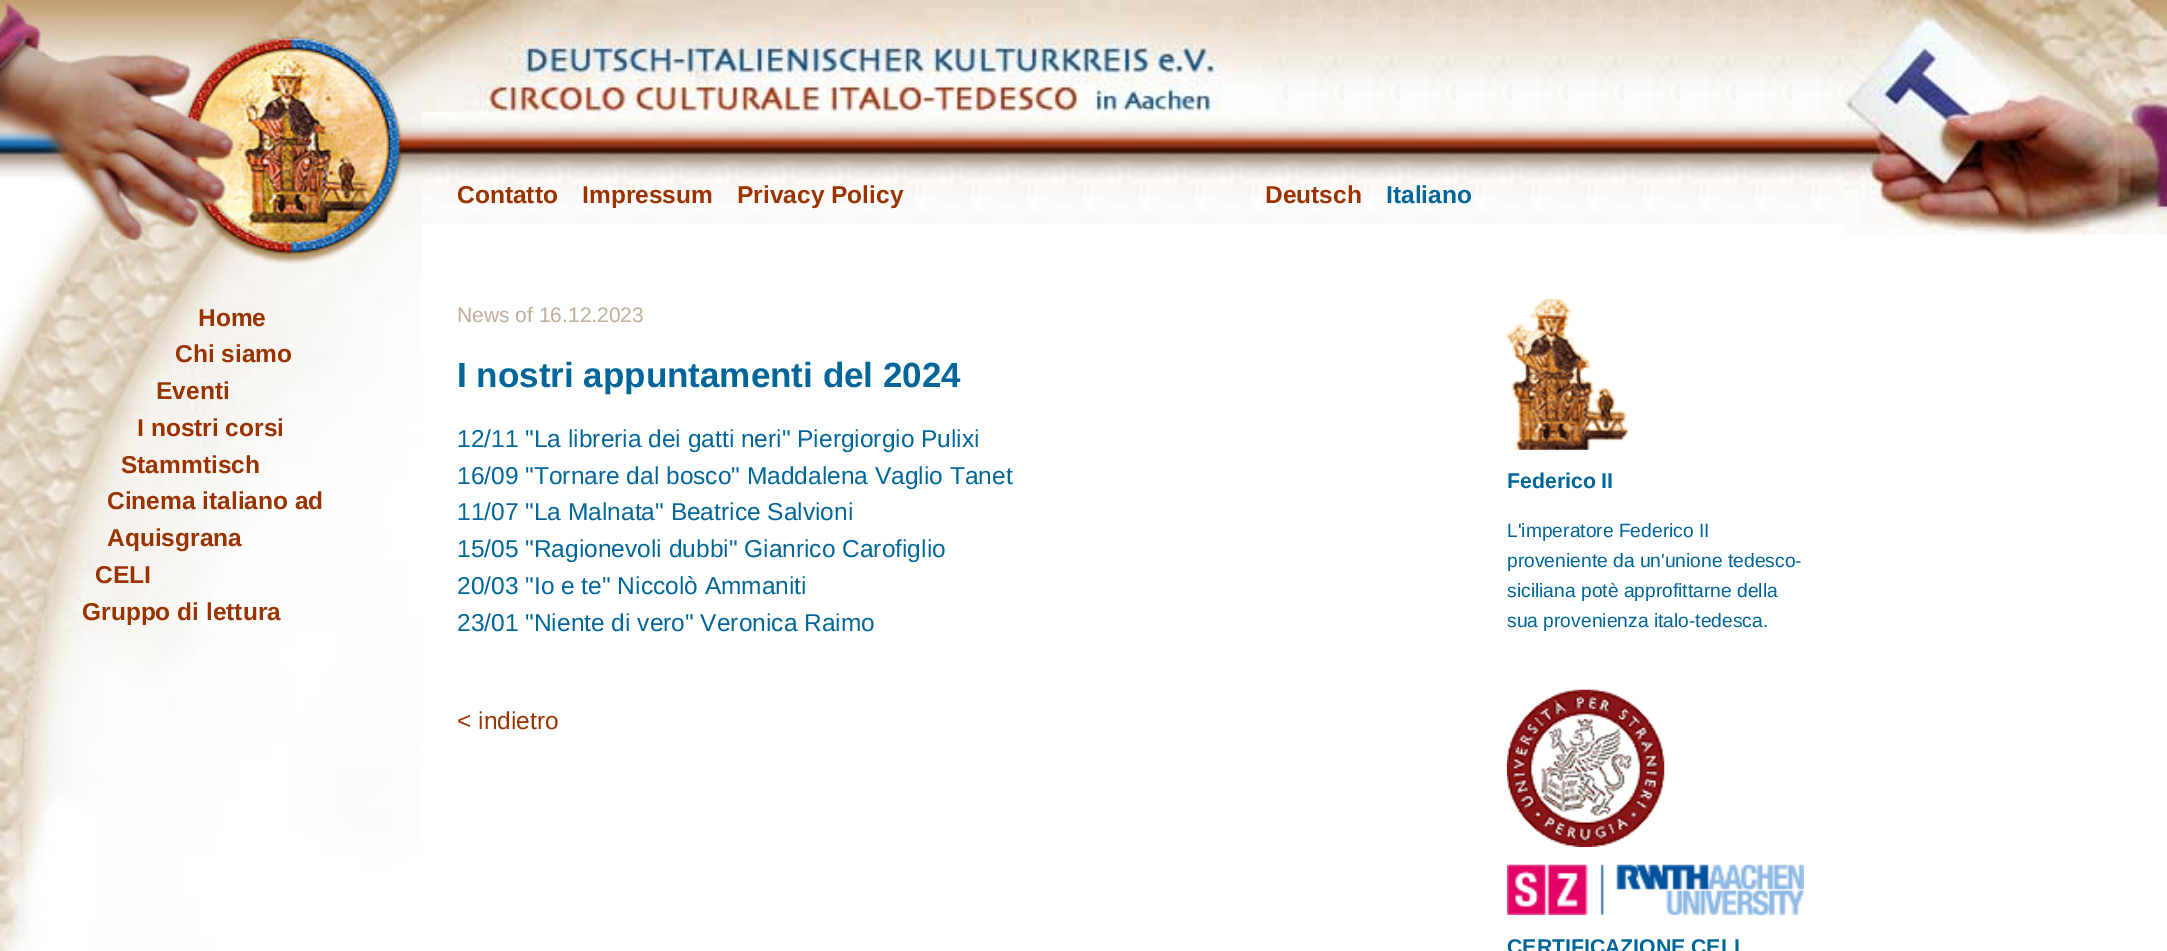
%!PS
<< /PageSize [2167 951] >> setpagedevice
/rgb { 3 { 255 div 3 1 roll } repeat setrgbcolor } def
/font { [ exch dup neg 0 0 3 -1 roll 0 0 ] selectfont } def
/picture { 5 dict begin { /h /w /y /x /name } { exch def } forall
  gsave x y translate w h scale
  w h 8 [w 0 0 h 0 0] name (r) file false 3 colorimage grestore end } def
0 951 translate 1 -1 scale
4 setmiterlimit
255 255 255 rgb
0 0 2167 951 rectfill
(img/1.rgb) 421 0 1424 224 picture
(img/2.rgb) 0 0 422 266 picture
(img/3.rgb) 421 0 858 114 picture
(img/4.rgb) 1844 0 323 235 picture
(img/5.rgb) 0 266 421 685 picture
(img/6.rgb) 1506 299 122 151 picture
(img/7.rgb) 1506 689 159 158 picture
(img/8.rgb) 1506 864 299 52 picture
/LiberationSans-Bold 24.5 font
153 51 0 rgb
[
  [(Contatto) 457 203]
  [(Impressum) 582 203]
  [(Privacy Policy) 737 203]
  [(Deutsch) 1265 203]
] { aload pop moveto show } forall
0 102 153 rgb
1386 203 moveto (Italiano) show
153 51 0 rgb
[
  [(Home) 198 326]
  [(Chi siamo) 175 362]
  [(Eventi) 156 399]
  [(I nostri corsi) 137 436]
  [(Stammtisch) 121 473]
  [(Cinema italiano ad) 107 509]
  [(Aquisgrana) 107 546]
  [(CELI) 95 583]
  [(Gruppo di lettura) 82 620]
] { aload pop moveto show } forall
/LiberationSans-Regular 21 font
191 174 154 rgb
457 322 moveto (News of 16.12.2023) show
/LiberationSans-Bold 35 font
0 102 153 rgb
457 387 moveto (I nostri appuntamenti del 2024) show
/LiberationSans-Regular 24.5 font
[
  [(12/11 "La libreria dei gatti neri" Piergiorgio Pulixi) 457 447]
  [(16/09 "Tornare dal bosco" Maddalena Vaglio Tanet) 457 484]
  [(11/07 "La Malnata" Beatrice Salvioni) 457 520]
  [(15/05 "Ragionevoli dubbi" Gianrico Carofiglio) 457 557]
  [(20/03 "Io e te" Niccolò Ammaniti) 457 594]
  [(23/01 "Niente di vero" Veronica Raimo) 457 631]
] { aload pop moveto show } forall
153 51 0 rgb
457 729 moveto (< indietro) show
/LiberationSans-Bold 21.25 font
0 102 153 rgb
1507 488 moveto (Federico II) show
/LiberationSans-Regular 19.25 font
[
  [(L'imperatore Federico II) 1507 537]
  [(proveniente da un'unione tedesco-) 1507 567]
  [(siciliana potè approfittarne della) 1507 597]
  [(sua provenienza italo-tedesca.) 1507 627]
] { aload pop moveto show } forall
/LiberationSans-Bold 21.25 font
1507 954 moveto (CERTIFICAZIONE CELI) show
showpage
